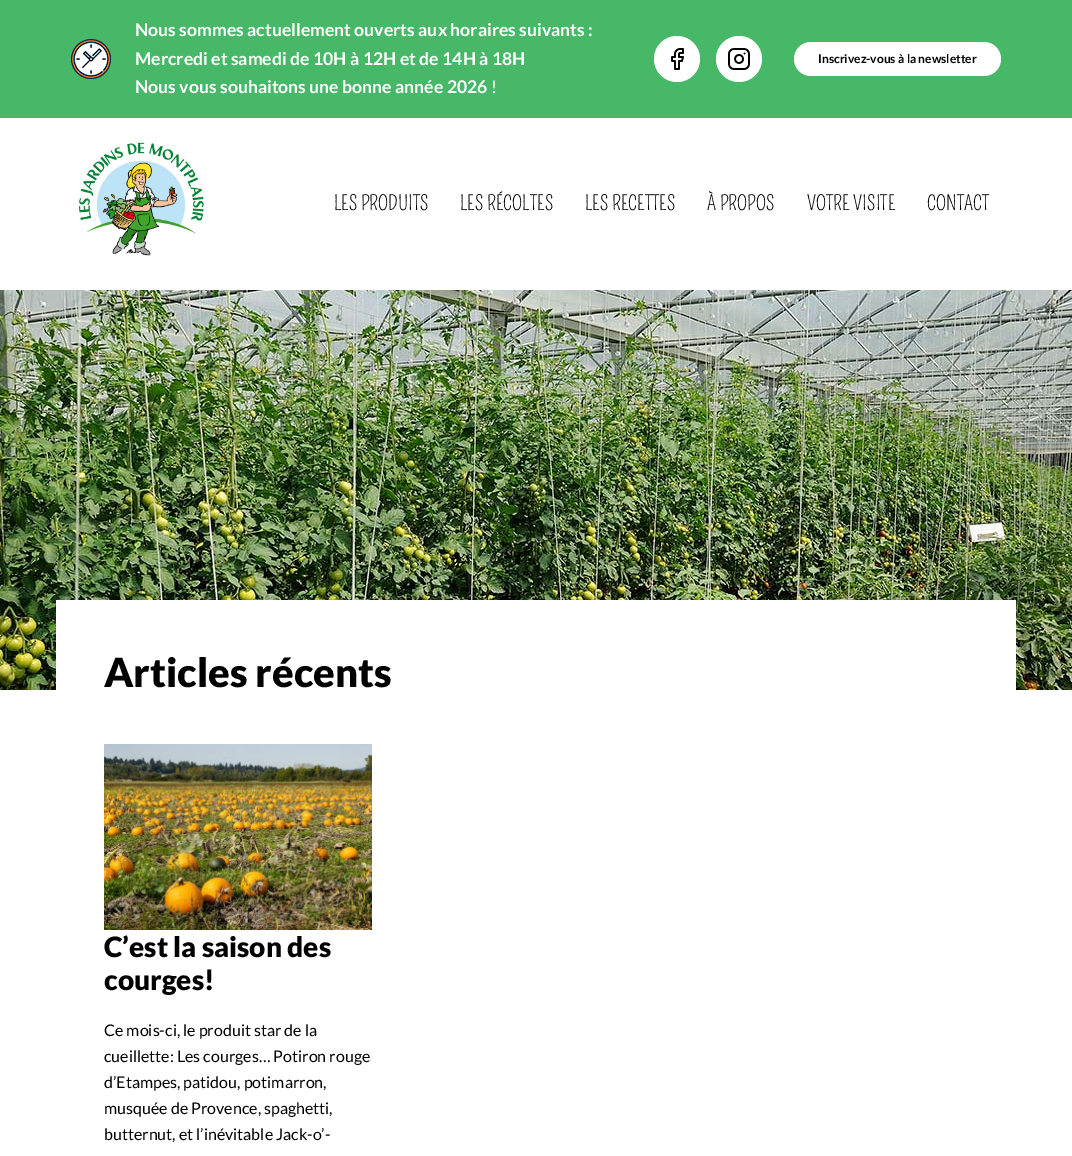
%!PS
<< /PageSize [1072 1156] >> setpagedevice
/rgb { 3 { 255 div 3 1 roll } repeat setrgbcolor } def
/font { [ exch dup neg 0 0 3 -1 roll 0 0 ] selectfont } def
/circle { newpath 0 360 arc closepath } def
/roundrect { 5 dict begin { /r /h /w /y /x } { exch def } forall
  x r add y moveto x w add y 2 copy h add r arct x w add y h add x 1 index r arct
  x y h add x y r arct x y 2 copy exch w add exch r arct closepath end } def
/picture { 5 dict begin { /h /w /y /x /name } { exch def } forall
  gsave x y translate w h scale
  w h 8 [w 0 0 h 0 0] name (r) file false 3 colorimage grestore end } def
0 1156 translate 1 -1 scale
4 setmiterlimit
255 255 255 rgb
0 0 1072 1156 rectfill
70 184 104 rgb
0 0 1072 118 rectfill
(img/1.rgb) 71 39 40 40 picture
255 255 255 rgb
677 59 23 circle fill
(img/2.rgb) 671 48 13 22 picture
739 59 23 circle fill
(img/3.rgb) 728 48 22 22 picture
794 42 207 34 17 roundrect fill
(img/4.rgb) 78 142 127 114 picture
(img/5.rgb) 0 290 1072 400 picture
56 600 960 90 rectfill
(img/6.rgb) 104 744 268 186 picture
/Lato-Bold 17.6 font
[
  [(Nous sommes actuellement ouverts aux horaires suivants :) 135 36]
  [(Mercredi et samedi de 10H à 12H et de 14H à 18H) 135 65]
  [(Nous vous souhaitons une bonne année 2026) 135 93]
] { aload pop moveto show } forall
/Lato-Regular 17.6 font
491 93 moveto (!) show
/Lato-Bold 12 font
0 0 0 rgb
818 63 moveto (Inscrivez-vous à la newsletter) show
/Pompiere-Regular 20 font
[
  [(LES PRODUITS) 334 210]
  [(LES RÉCOLTES) 460 210]
  [(LES RECETTES) 585 210]
  [(À PROPOS) 707 210]
  [(VOTRE VISITE) 807 210]
  [(CONTACT) 927 210]
] { aload pop moveto show } forall
/Lato-Black 40 font
104 687 moveto (Articles récents) show
/Lato-Black 28 font
104 957 moveto (C’est la saison des) show
104 990 moveto (courges!) show
/Lato-Regular 16 font
[
  [(Ce mois-ci, le produit star de la) 104 1036]
  [(cueillette: Les courges… Potiron rouge) 104 1062]
  [(d’Etampes, patidou, potimarron,) 104 1088]
  [(musquée de Provence, spaghetti,) 104 1114]
  [(butternut, et l’inévitable Jack-o’-) 104 1140]
] { aload pop moveto show } forall
showpage
